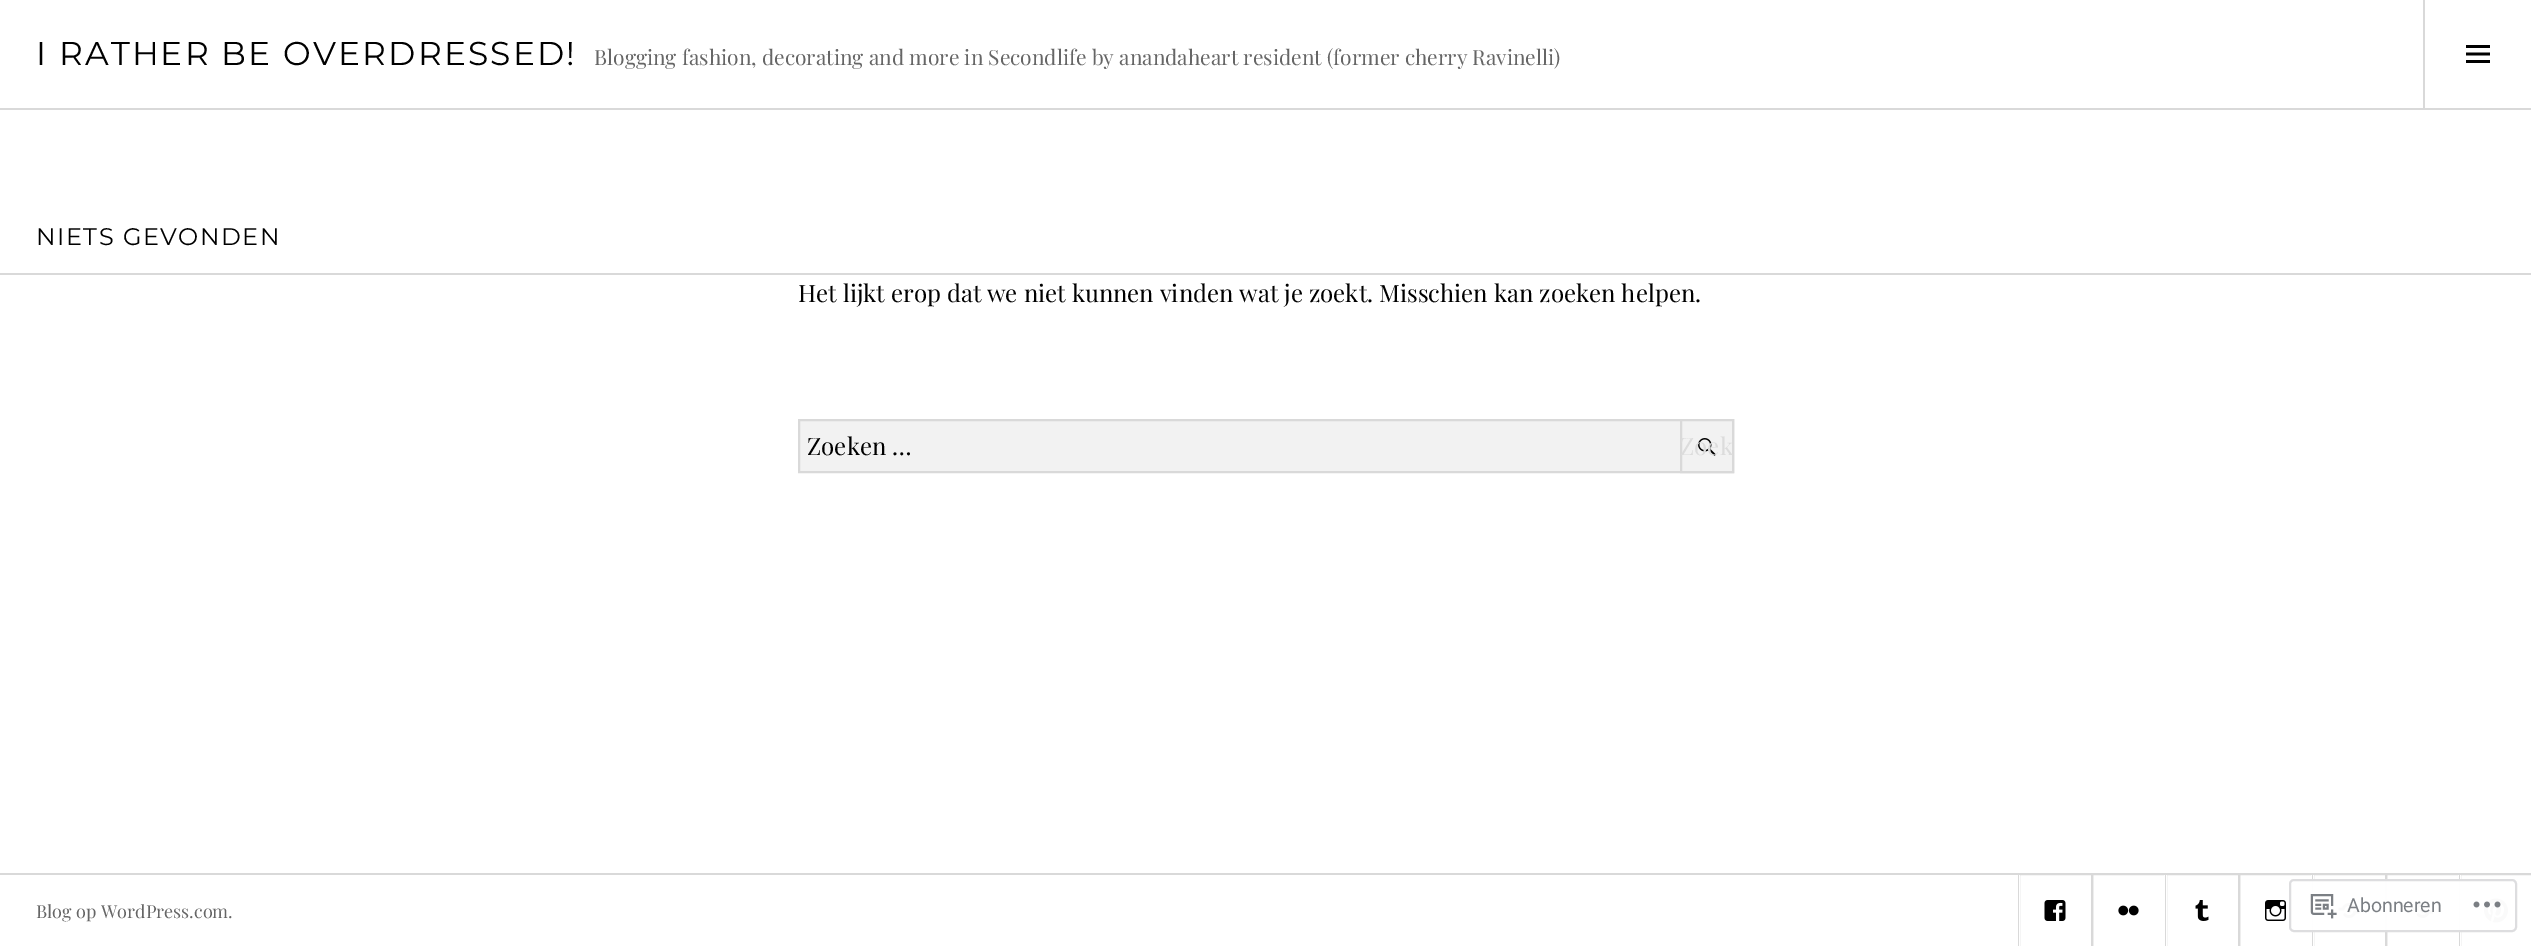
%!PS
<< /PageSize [2531 946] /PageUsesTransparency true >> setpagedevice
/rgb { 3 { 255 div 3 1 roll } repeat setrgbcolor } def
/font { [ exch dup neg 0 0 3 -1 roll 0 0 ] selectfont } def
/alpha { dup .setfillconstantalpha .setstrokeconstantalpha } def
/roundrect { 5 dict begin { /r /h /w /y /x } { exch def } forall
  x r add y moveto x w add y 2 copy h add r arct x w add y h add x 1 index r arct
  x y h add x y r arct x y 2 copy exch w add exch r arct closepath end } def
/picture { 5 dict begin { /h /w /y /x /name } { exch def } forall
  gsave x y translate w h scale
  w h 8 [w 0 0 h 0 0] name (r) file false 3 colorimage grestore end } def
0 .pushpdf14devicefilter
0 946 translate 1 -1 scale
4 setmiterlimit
255 255 255 rgb
0 0 2531 946 rectfill
217 217 217 rgb
0 108 2531 2 rectfill
2423 0 2 108 rectfill
(img/1.rgb) 2466 45 24 18 picture
0 273 2531 2 rectfill
242 242 242 rgb
800 421 880 50 rectfill
217 217 217 rgb
2 setlinewidth
799 420 934 52 rectstroke
242 242 242 rgb
1681 420 moveto 1733 420 lineto 1733 472 lineto 1681 472 lineto closepath gsave fill grestore
217 217 217 rgb
stroke
(img/2.rgb) 1698 438 18 18 picture
0 873 2531 2 rectfill
gsave
0 875 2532 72 rectclip
2019 874 73 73 rectstroke
grestore
255 255 255 rgb
2019 875 1 71 rectfill
(img/3.rgb) 2044 900 22 21 picture
gsave
0 875 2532 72 rectclip
217 217 217 rgb
2092 874 73 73 rectstroke
grestore
2164 875 1 71 rectfill
(img/4.rgb) 2118 905 21 11 picture
gsave
0 875 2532 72 rectclip
217 217 217 rgb
2166 874 73 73 rectstroke
grestore
2166 875 1 71 rectfill
(img/5.rgb) 2195 900 14 21 picture
gsave
0 875 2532 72 rectclip
217 217 217 rgb
2239 874 73 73 rectstroke
grestore
2311 875 1 71 rectfill
(img/6.rgb) 2265 900 21 21 picture
gsave
0 875 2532 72 rectclip
217 217 217 rgb
2313 874 73 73 rectstroke
grestore
2313 875 1 71 rectfill
(img/7.rgb) 2338 903 22 15 picture
gsave
0 875 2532 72 rectclip
217 217 217 rgb
2386 874 73 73 rectstroke
grestore
2458 875 1 71 rectfill
(img/8.rgb) 2412 903 21 15 picture
gsave
0 875 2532 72 rectclip
217 217 217 rgb
2460 874 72 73 rectstroke
grestore
2460 875 1 71 rectfill
(img/9.rgb) 2484 898 24 25 picture
0.98 alpha
2290 880 226 51 4 roundrect fill
1 alpha
221 221 223 rgb
2290 880 226 51 4 roundrect stroke
(img/10.rgb) 2310 894 27 25 picture
(img/11.rgb) 2473 901 28 7 picture
/Montserrat-Regular 33 font
0 0 0 rgb
36 65 moveto 2.1 0 (I RATHER BE OVERDRESSED!) ashow
/PlayfairDisplay-Regular 21 font
102 102 102 rgb
594 65 moveto (Blogging fashion, decorating and more in Secondlife by anandaheart resident \(former cherry Ravinelli\)) show
/Montserrat-Regular 24 font
0 0 0 rgb
36 245 moveto 1.5 0 (NIETS GEVONDEN) ashow
/PlayfairDisplay-Regular 24 font
798 302 moveto (Het lijkt erop dat we niet kunnen vinden wat je zoekt. Misschien kan zoeken helpen.) show
807 455 moveto (Zoeken …) show
220 220 220 rgb
1680 455 moveto (Zoek) show
/PlayfairDisplay-Regular 18 font
102 102 102 rgb
36 918 moveto (Blog op WordPress.com.) show
/Roboto-Regular 19.5 font
123 127 132 rgb
2347 912 moveto (Abonneren) show
.poppdf14devicefilter showpage
